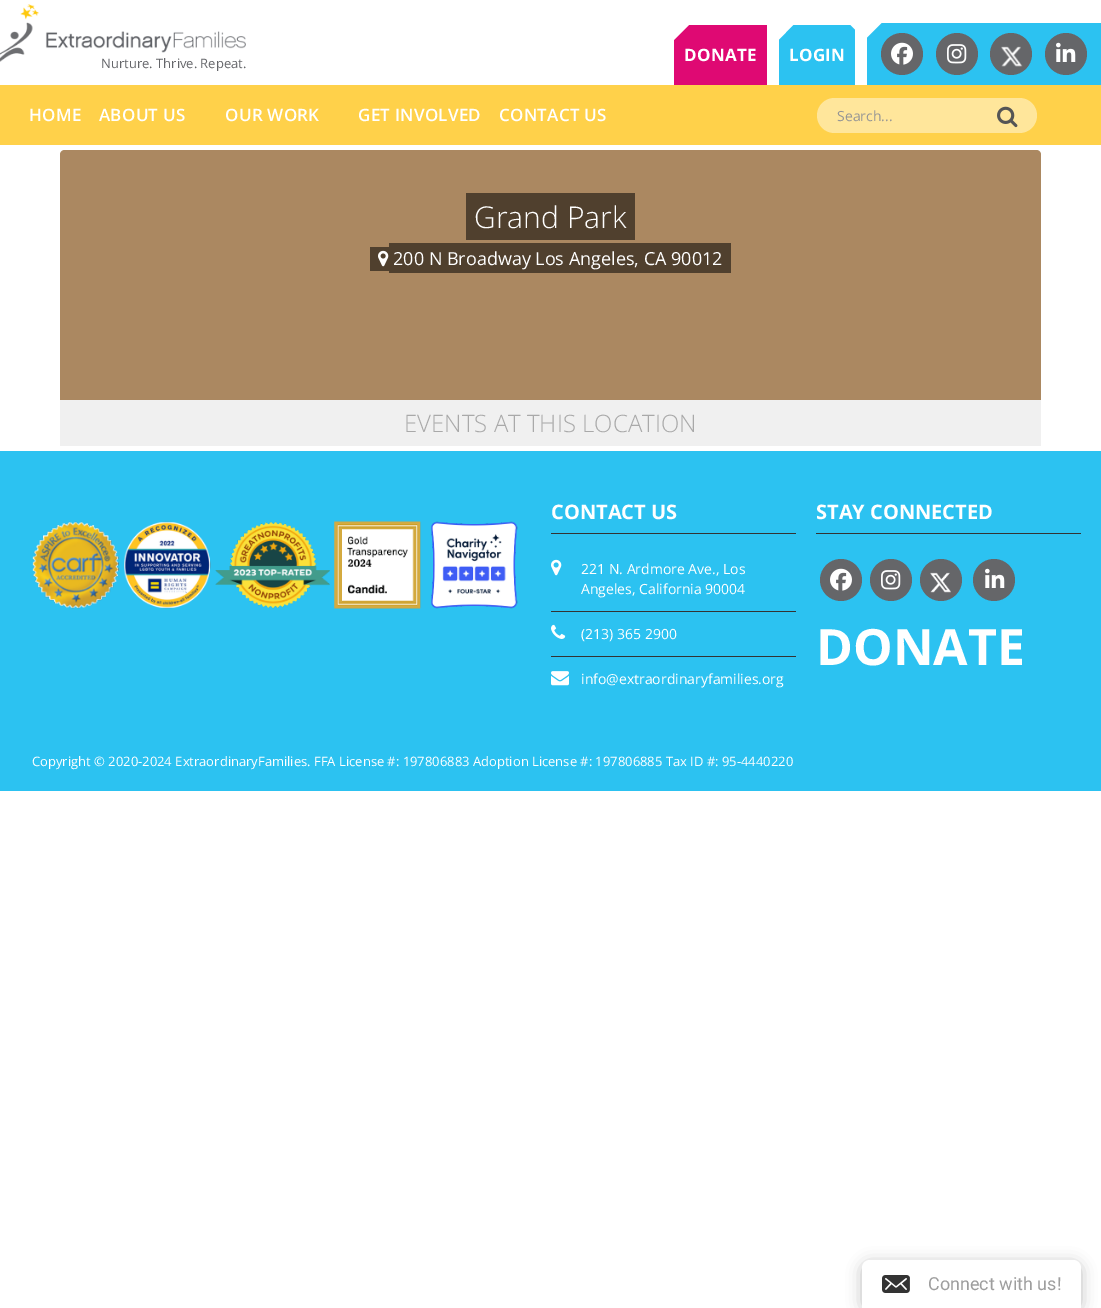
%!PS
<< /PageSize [1101 1308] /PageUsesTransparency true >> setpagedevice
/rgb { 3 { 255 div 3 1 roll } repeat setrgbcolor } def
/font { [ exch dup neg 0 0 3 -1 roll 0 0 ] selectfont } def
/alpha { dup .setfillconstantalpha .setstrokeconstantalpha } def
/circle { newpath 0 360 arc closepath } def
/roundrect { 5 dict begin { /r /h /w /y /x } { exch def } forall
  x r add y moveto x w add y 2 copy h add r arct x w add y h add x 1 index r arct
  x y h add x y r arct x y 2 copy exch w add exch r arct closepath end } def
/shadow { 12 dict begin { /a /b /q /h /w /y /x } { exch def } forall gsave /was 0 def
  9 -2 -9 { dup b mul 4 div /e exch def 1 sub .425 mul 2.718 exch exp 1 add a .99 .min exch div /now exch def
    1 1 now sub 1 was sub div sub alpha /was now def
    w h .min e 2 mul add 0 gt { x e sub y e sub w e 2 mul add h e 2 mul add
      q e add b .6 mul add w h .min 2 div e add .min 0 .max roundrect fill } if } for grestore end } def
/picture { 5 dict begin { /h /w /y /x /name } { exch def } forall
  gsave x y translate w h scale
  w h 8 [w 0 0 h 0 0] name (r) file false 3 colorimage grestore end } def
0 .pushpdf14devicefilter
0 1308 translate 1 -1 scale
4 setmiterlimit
255 255 255 rgb
0 0 1101 1308 rectfill
44 194 241 rgb
779 25 76 60 rectfill
255 255 255 rgb
795 23 moveto 777 41.5 lineto 758.5 23 lineto 777 4.5 lineto closepath fill
223 9 115 rgb
674 25 93 60 rectfill
255 255 255 rgb
691 23 moveto 672.5 41.5 lineto 654 23 lineto 672.5 4.5 lineto closepath fill
44 194 241 rgb
867 23 234 62 rectfill
101 102 105 rgb
902 54 21 circle fill
255 255 255 rgb
883.5 21 moveto 865 39.5 lineto 846.5 21 lineto 865 2.5 lineto closepath fill
(img/1.rgb) 891 42 22 23 picture
101 102 105 rgb
957 54 21 circle fill
(img/2.rgb) 947 44 20 20 picture
1011 54 21 circle fill
(img/3.rgb) 1001 46 22 21 picture
1066 54 21 circle fill
(img/4.rgb) 1056 42 20 20 picture
(img/5.rgb) 0 4 246 58 picture
255 209 74 rgb
0 85 1101 60 rectfill
255 230 155 rgb
817 98 220 35 17.5 roundrect fill
(img/6.rgb) 997 106 21 22 picture
218 169 113 rgb
65 150 moveto 1036 150 lineto 1039 150 1041 152 1041 155 curveto 1041 400 lineto 60 400 lineto 60 155 lineto 60 152 62 150 65 150 curveto closepath fill
0.3 alpha
61 61 61 rgb
65 150 moveto 1036 150 lineto 1039 150 1041 152 1041 155 curveto 1041 400 lineto 60 400 lineto 60 155 lineto 60 152 62 150 65 150 curveto closepath fill
1 alpha
[
  [466 193 169 47 80 64 46]
  [370 247 19 24 80 64 46]
  [389 243 342 30 80 64 46]
] { aload pop rgb rectfill } forall
(img/7.rgb) 378 250 11 17 picture
240 240 240 rgb
60 400 981 46 rectfill
44 194 241 rgb
0 451 1101 340 rectfill
(img/8.rgb) 32 521 486 88 picture
51 51 51 rgb
551 533 245 1 rectfill
551 611 245 1 rectfill
(img/9.rgb) 551 559 11 17 picture
551 656 245 1 rectfill
(img/10.rgb) 551 624 15 15 picture
(img/11.rgb) 551 671 18 15 picture
816 533 265 1 rectfill
101 102 105 rgb
841 580 21 circle fill
(img/1.rgb) 830 568 22 23 picture
891 580 21 circle fill
(img/2.rgb) 881 570 20 20 picture
941 580 21 circle fill
(img/12.rgb) 930 572 21 21 picture
994 580 21 circle fill
(img/4.rgb) 985 568 20 20 picture
0 0 0 rgb
862 1263 219 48 8 7.5 0.25 shadow
255 255 255 rgb
870 1260 moveto 1073 1260 lineto 1077.5 1260 1081 1263.5 1081 1268 curveto 1081 1308 lineto 862 1308 lineto 862 1268 lineto 862 1263.5 865.5 1260 870 1260 curveto closepath fill
(img/13.rgb) 882 1275 28 18 picture
/OpenSans-Bold 17 font
684 61 moveto 0.25 0 (DONATE) ashow
789 61 moveto 0.25 0 (LOGIN) ashow
/OpenSans-Regular 13 font
101 102 106 rgb
101 68 moveto (Nurture. Thrive. Repeat.) show
/OpenSans-SemiBold 17 font
255 255 255 rgb
29 121 moveto 0.25 0 (HOME) ashow
99 121 moveto 0.25 0 (ABOUT US) ashow
225 121 moveto 0.25 0 (OUR WORK) ashow
358 121 moveto 0.25 0 (GET INVOLVED) ashow
499 121 moveto 0.25 0 (CONTACT US) ashow
/OpenSans-Regular 14 font
149 149 149 rgb
837 121 moveto (Search...) show
/OpenSans-Light 30 font
255 255 255 rgb
474 228 moveto (Grand Park) show
/OpenSans-Regular 18 font
393 265 moveto (200 N Broadway Los Angeles, CA 90012) show
/OpenSans-Light 24 font
169 169 169 rgb
404 432 moveto (EVENTS AT THIS LOCATION) show
/OpenSans-Bold 20 font
255 255 255 rgb
551 519 moveto (CONTACT US) show
/OpenSans-Regular 14 font
[
  [(221 N. Ardmore Ave., Los) 581 574]
  [(Angeles, California 90004) 581 594]
  [(\(213\) 365 2900) 581 639]
  [(info@extraordinaryfamilies.org) 581 684]
] { aload pop moveto show } forall
/OpenSans-Bold 20 font
816 519 moveto (STAY CONNECTED) show
/OpenSans-Bold 50 font
816 665 moveto (DONATE) show
/OpenSans-Regular 13 font
32 766 moveto (Copyright © 2020-2024 ExtraordinaryFamilies. FFA License #: 197806883 Adoption License #: 197806885 Tax ID #: 95-4440220) show
/Roboto-Regular 18 font
158 158 158 rgb
928 1290 moveto (Connect with us!) show
.poppdf14devicefilter showpage
